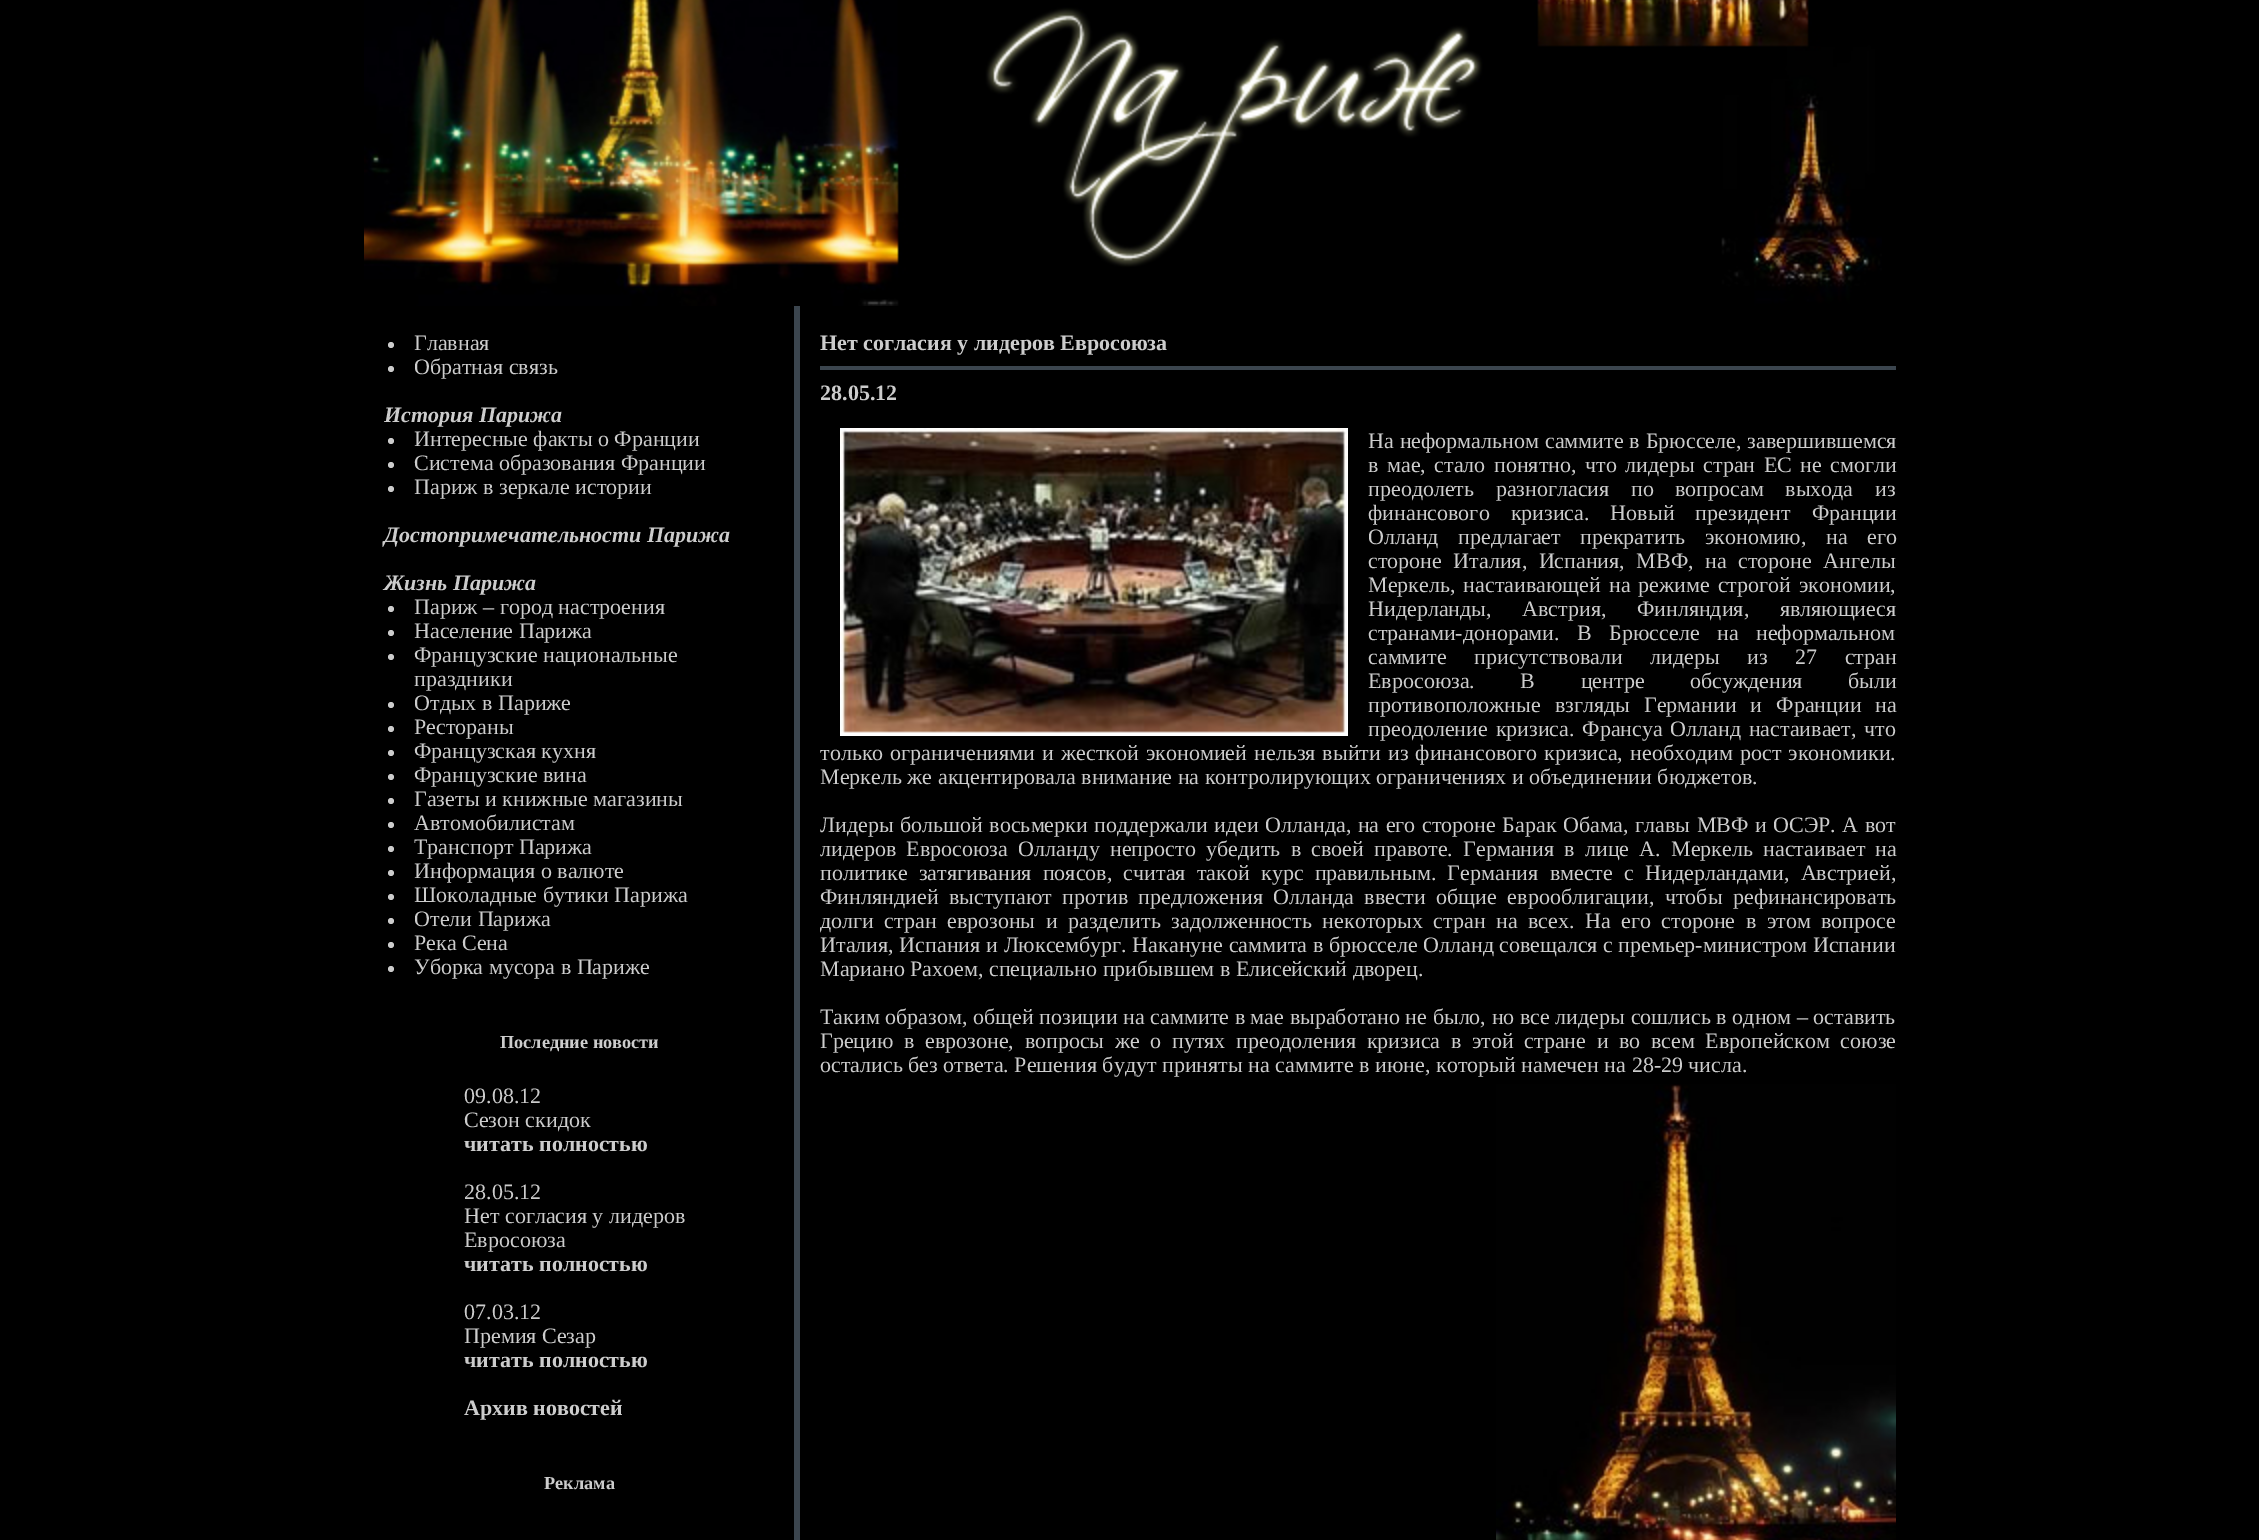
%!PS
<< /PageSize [2259 1540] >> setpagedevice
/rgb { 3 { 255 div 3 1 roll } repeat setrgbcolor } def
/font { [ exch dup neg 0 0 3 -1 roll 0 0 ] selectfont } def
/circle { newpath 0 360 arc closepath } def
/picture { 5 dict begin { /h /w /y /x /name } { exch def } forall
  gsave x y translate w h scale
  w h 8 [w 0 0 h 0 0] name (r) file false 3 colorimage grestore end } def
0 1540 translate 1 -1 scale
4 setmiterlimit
0 0 0 rgb
0 0 2259 1540 rectfill
(img/1.rgb) 364 0 1518 306 picture
204 204 204 rgb
391 345 3 circle fill
391 369 3 circle fill
391 441 3 circle fill
391 465 3 circle fill
391 489 3 circle fill
391 609 3 circle fill
391 633 3 circle fill
391 657 3 circle fill
391 705 3 circle fill
391 729 3 circle fill
391 753 3 circle fill
391 777 3 circle fill
391 801 3 circle fill
391 825 3 circle fill
391 849 3 circle fill
391 873 3 circle fill
391 897 3 circle fill
391 921 3 circle fill
391 945 3 circle fill
391 969 3 circle fill
59 69 78 rgb
794 306 6 1234 rectfill
(img/2.rgb) 1496 1084 400 456 picture
820 366 1076 4 rectfill
(img/3.rgb) 840 428 508 308 picture
/LiberationSerif-Regular 22 font
204 204 204 rgb
414 350 moveto (Главная) show
414 374 moveto (Обратная связь) show
/LiberationSerif-BoldItalic 22 font
384 422 moveto (История Парижа) show
/LiberationSerif-Regular 22 font
[
  [(Интересные факты о Франции) 414 446]
  [(Система образования Франции) 414 470]
  [(Париж в зеркале истории) 414 494]
] { aload pop moveto show } forall
/LiberationSerif-BoldItalic 22 font
384 542 moveto (Достопримечательности Парижа) show
384 590 moveto (Жизнь Парижа) show
/LiberationSerif-Regular 22 font
[
  [(Париж – город настроения) 414 614]
  [(Население Парижа) 414 638]
  [(Французские национальные) 414 662]
  [(праздники) 414 686]
  [(Отдых в Париже) 414 710]
  [(Рестораны) 414 734]
  [(Французская кухня) 414 758]
  [(Французские вина) 414 782]
  [(Газеты и книжные магазины) 414 806]
  [(Автомобилистам) 414 830]
  [(Транспорт Парижа) 414 854]
  [(Информация о валюте) 414 878]
  [(Шоколадные бутики Парижа) 414 902]
  [(Отели Парижа) 414 926]
  [(Река Сена) 414 950]
  [(Уборка мусора в Париже) 414 974]
] { aload pop moveto show } forall
/LiberationSerif-Bold 18.25 font
500 1048 moveto (Последние новости) show
/LiberationSerif-Regular 22 font
464 1103 moveto (09.08.12) show
464 1127 moveto (Сезон скидок) show
/LiberationSerif-Bold 22 font
464 1151 moveto (читать полностью) show
/LiberationSerif-Regular 22 font
[
  [(28.05.12) 464 1199]
  [(Нет согласия у лидеров) 464 1223]
  [(Евросоюза) 464 1247]
] { aload pop moveto show } forall
/LiberationSerif-Bold 22 font
464 1271 moveto (читать полностью) show
/LiberationSerif-Regular 22 font
464 1319 moveto (07.03.12) show
464 1343 moveto (Премия Сезар) show
/LiberationSerif-Bold 22 font
464 1367 moveto (читать полностью) show
464 1415 moveto (Архив новостей) show
/LiberationSerif-Bold 18.25 font
544 1489 moveto (Реклама) show
/LiberationSerif-Bold 22 font
820 350 moveto (Нет согласия у лидеров Евросоюза) show
820 400 moveto (28.05.12) show
/LiberationSerif-Regular 22 font
1368 448 moveto 0.5 0 32 (На неформальном саммите в Брюсселе, завершившемся) widthshow
1368 472 moveto 3 0 32 (в мае, стало понятно, что лидеры стран ЕС не смогли) widthshow
1368 496 moveto 16 0 32 (преодолеть разногласия по вопросам выхода из) widthshow
1368 520 moveto 15.5 0 32 (финансового кризиса. Новый президент Франции) widthshow
1368 544 moveto 14 0 32 (Олланд предлагает прекратить экономию, на его) widthshow
1368 568 moveto 6 0 32 (стороне Италия, Испания, МВФ, на стороне Ангелы) widthshow
1368 592 moveto 2.5 0 32 (Меркель, настаивающей на режиме строгой экономии,) widthshow
1368 616 moveto 25 0 32 (Нидерланды, Австрия, Финляндия, являющиеся) widthshow
1368 640 moveto 12 0 32 (странами-донорами. В Брюсселе на неформальном) widthshow
1368 664 moveto 22 0 32 (саммите присутствовали лидеры из 27 стран) widthshow
1368 688 moveto 40 0 32 (Евросоюза. В центре обсуждения были) widthshow
1368 712 moveto 8.5 0 32 (противоположные взгляды Германии и Франции на) widthshow
1368 736 moveto 2.25 0 32 (преодоление кризиса. Франсуа Олланд настаивает, что) widthshow
820 760 moveto 1.6 0 32 (только ограничениями и жесткой экономией нельзя выйти из финансового кризиса, необходим рост экономики.) widthshow
820 784 moveto (Меркель же акцентировала внимание на контролирующих ограничениях и объединении бюджетов.) show
820 832 moveto 1 0 32 (Лидеры большой восьмерки поддержали идеи Олланда, на его стороне Барак Обама, главы МВФ и ОСЭР. А вот) widthshow
820 856 moveto 4.75 0 32 (лидеров Евросоюза Олланду непросто убедить в своей правоте. Германия в лице А. Меркель настаивает на) widthshow
820 880 moveto 5.75 0 32 (политике затягивания поясов, считая такой курс правильным. Германия вместе с Нидерландами, Австрией,) widthshow
820 904 moveto 5 0 32 (Финляндией выступают против предложения Олланда ввести общие еврооблигации, чтобы рефинансировать) widthshow
820 928 moveto 5 0 32 (долги стран еврозоны и разделить задолженность некоторых стран на всех. На его стороне в этом вопросе) widthshow
820 952 moveto 0.25 0 32 (Италия, Испания и Люксембург. Накануне саммита в брюсселе Олланд) widthshow
1499 952 moveto (совещался с премьер-министром Испании) show
820 976 moveto (Мариано Рахоем, специально прибывшем в Елисейский дворец.) show
820 1024 moveto 0.1 0 32 (Таким образом, общей позиции на саммите в мае выработано не было, но все лидеры сошлись в одном – оставить) widthshow
820 1048 moveto 5.1 0 32 (Грецию в еврозоне, вопросы же о путях преодоления кризиса в этой стране и во всем Европейском союзе) widthshow
820 1072 moveto (остались без ответа. Решения будут приняты на саммите в июне, который намечен на 28-29 числа.) show
showpage
